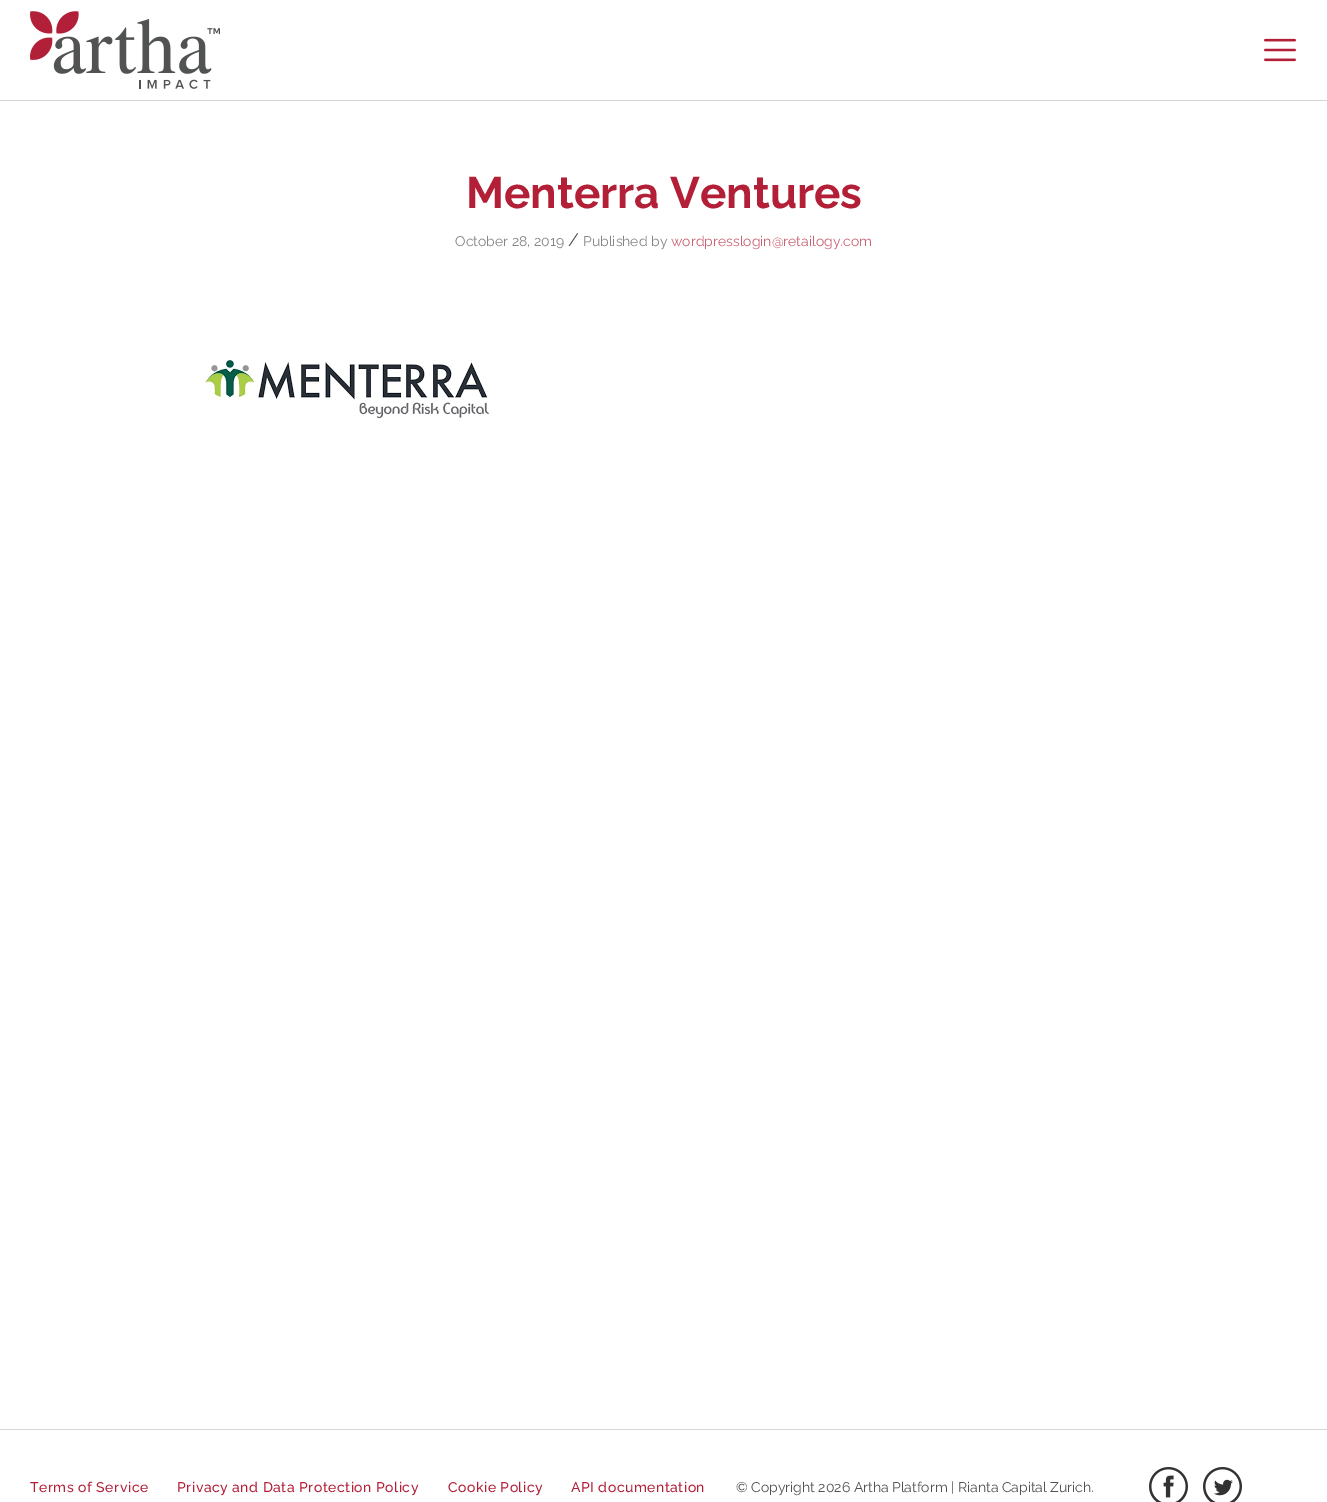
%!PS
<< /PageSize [1327 1502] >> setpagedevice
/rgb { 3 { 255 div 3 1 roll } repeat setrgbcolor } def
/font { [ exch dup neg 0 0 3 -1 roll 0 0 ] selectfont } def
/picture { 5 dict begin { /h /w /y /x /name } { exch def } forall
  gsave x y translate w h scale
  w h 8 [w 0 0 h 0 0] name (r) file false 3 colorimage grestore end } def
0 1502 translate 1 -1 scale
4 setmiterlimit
255 255 255 rgb
0 0 1327 1502 rectfill
214 214 214 rgb
0 100 1327 1 rectfill
(img/1.rgb) 30 11 190 78 picture
(img/2.rgb) 1264 38 32 24 picture
(img/3.rgb) 205 359 284 60 picture
0 1429 1327 1 rectfill
(img/4.rgb) 1149 1467 39 35 picture
(img/5.rgb) 1203 1467 39 35 picture
/Raleway-Bold 44 font
178 31 55 rgb
466 208 moveto (Menterra Ventures) show
/Raleway-Regular 14 font
133 133 133 rgb
455 246 moveto (October 28, 2019) show
/Raleway-Regular 18 font
81 81 81 rgb
568 246 moveto (/) show
/Raleway-Regular 14 font
133 133 133 rgb
583 246 moveto (Published by) show
201 98 115 rgb
671 246 moveto (wordpresslogin@retailogy.com) show
/Raleway-Medium 14 font
178 31 55 rgb
30 1492 moveto 0.5 0 (Terms of Service) ashow
177 1492 moveto 0.5 0 (Privacy and Data Protection Policy) ashow
448 1492 moveto 0.5 0 (Cookie Policy) ashow
571 1492 moveto 0.5 0 (API documentation) ashow
/Raleway-Regular 14 font
81 81 81 rgb
736 1492 moveto (© Copyright 2026 Artha Platform | Rianta Capital Zurich.) show
showpage
